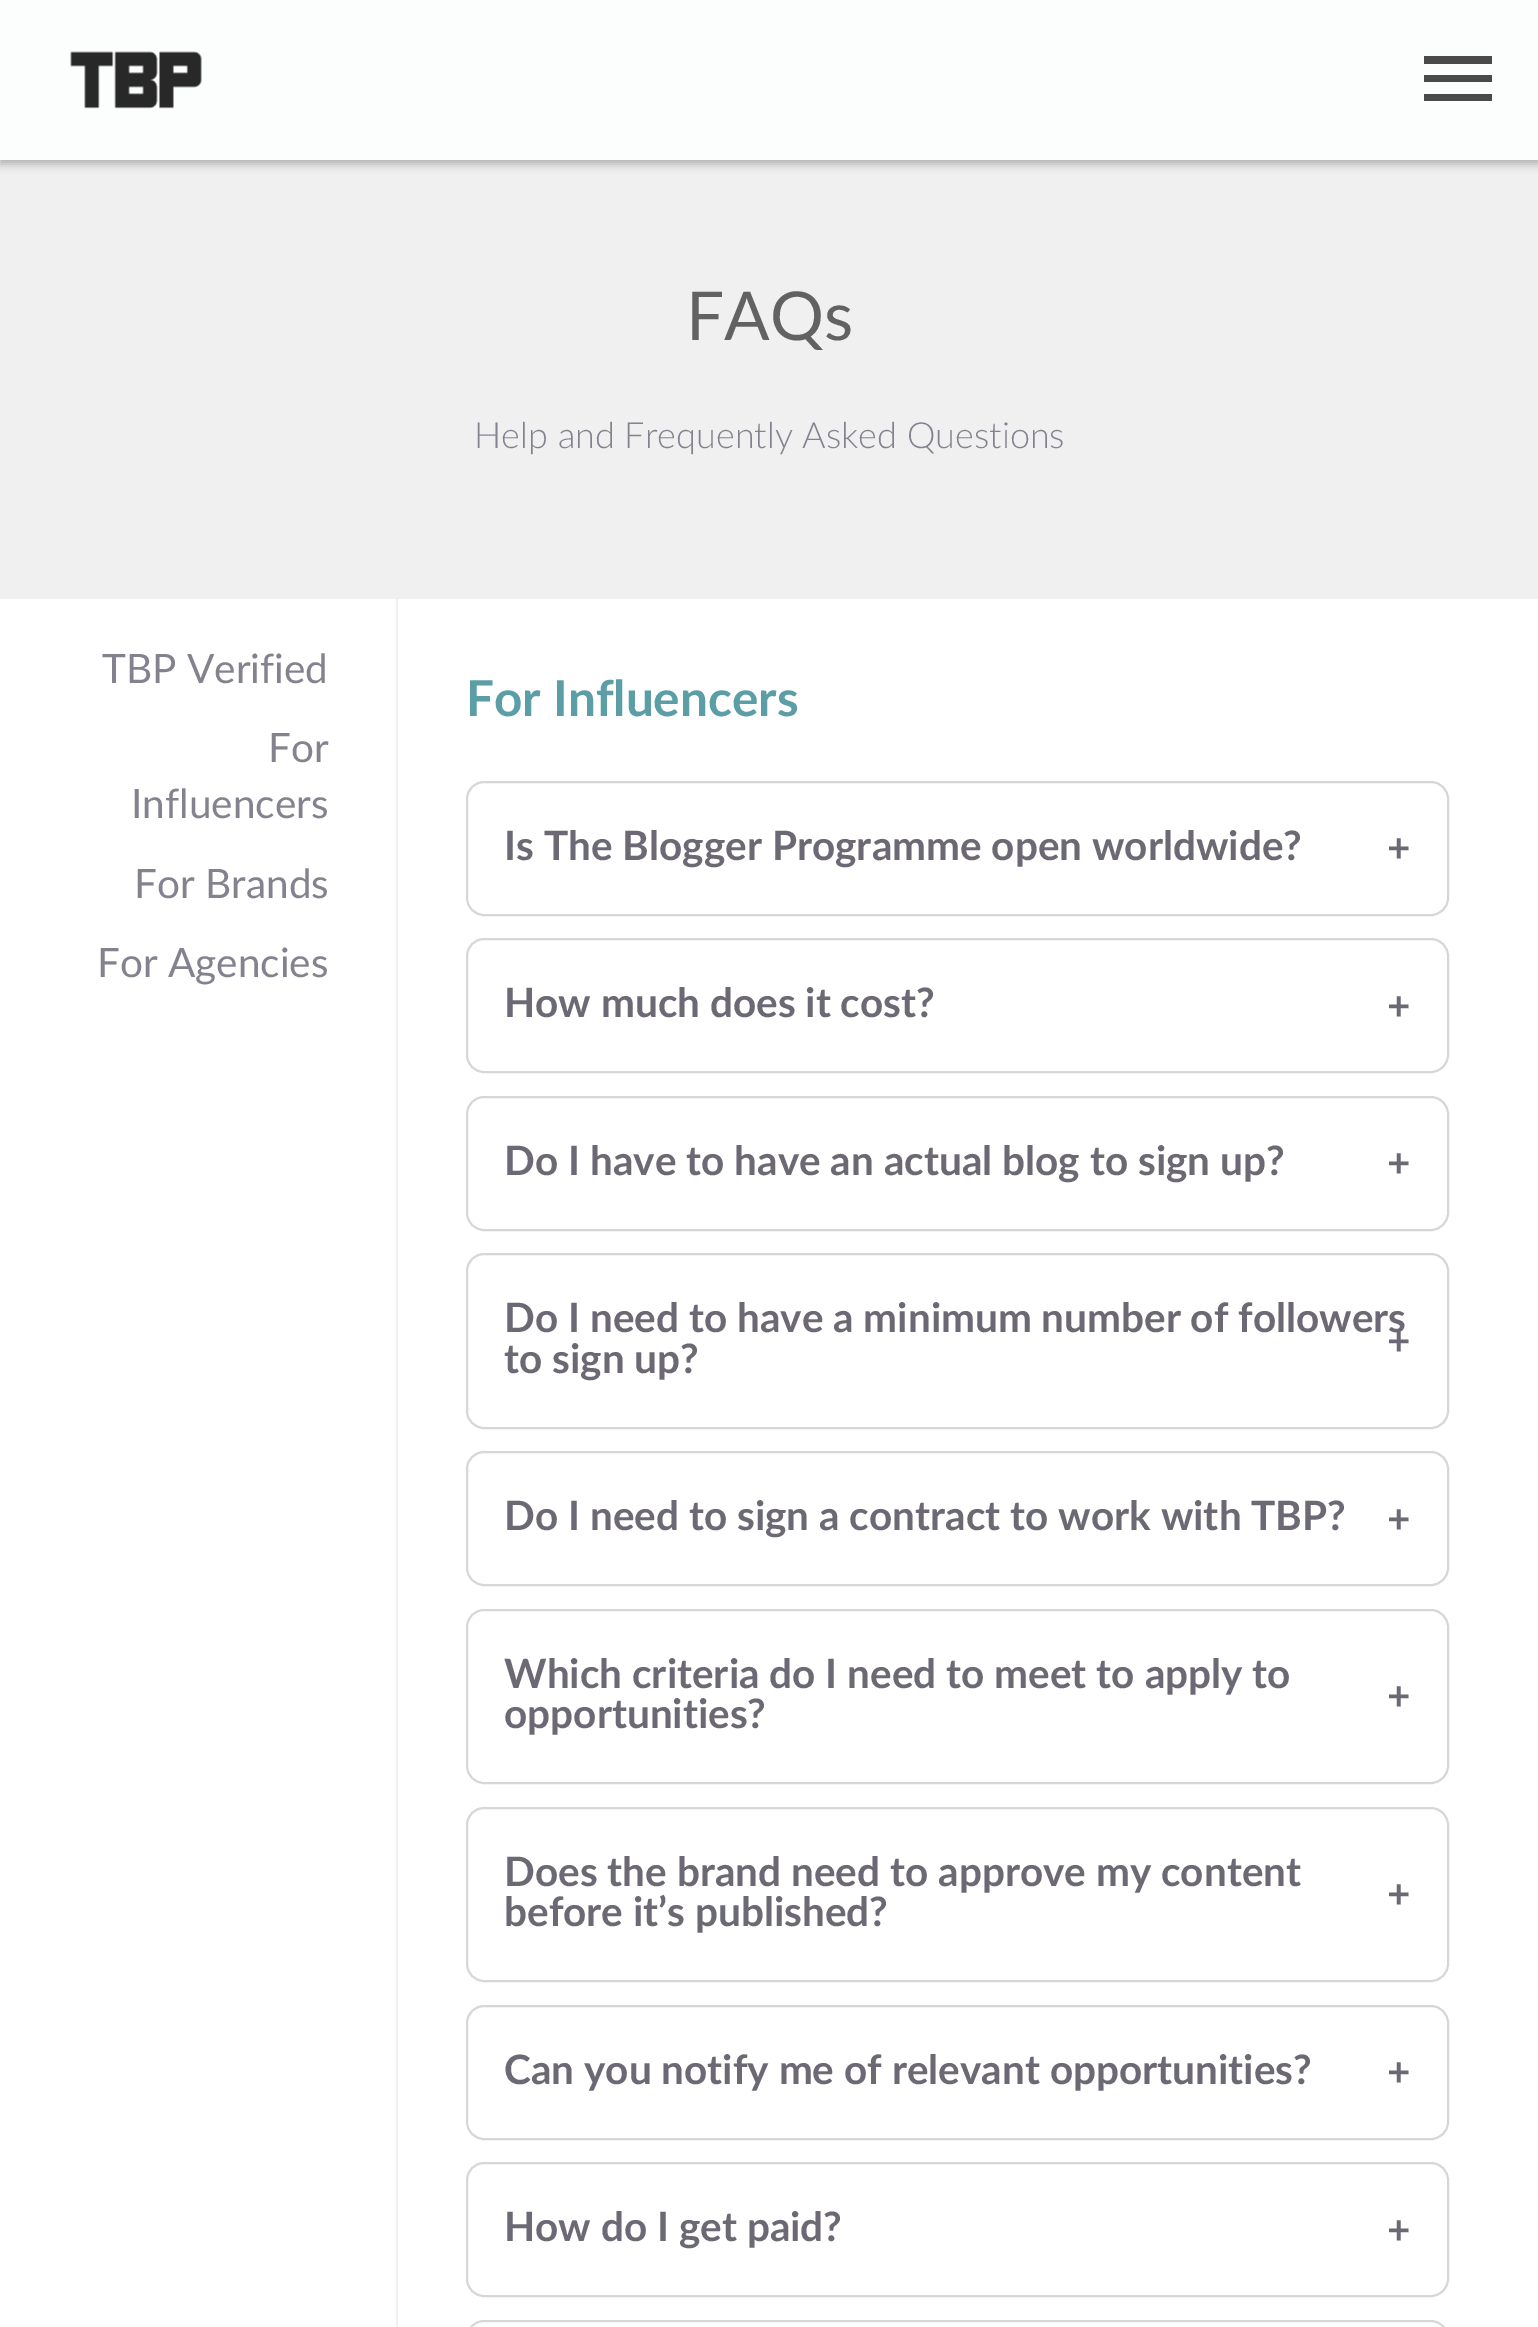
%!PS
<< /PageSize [1538 2327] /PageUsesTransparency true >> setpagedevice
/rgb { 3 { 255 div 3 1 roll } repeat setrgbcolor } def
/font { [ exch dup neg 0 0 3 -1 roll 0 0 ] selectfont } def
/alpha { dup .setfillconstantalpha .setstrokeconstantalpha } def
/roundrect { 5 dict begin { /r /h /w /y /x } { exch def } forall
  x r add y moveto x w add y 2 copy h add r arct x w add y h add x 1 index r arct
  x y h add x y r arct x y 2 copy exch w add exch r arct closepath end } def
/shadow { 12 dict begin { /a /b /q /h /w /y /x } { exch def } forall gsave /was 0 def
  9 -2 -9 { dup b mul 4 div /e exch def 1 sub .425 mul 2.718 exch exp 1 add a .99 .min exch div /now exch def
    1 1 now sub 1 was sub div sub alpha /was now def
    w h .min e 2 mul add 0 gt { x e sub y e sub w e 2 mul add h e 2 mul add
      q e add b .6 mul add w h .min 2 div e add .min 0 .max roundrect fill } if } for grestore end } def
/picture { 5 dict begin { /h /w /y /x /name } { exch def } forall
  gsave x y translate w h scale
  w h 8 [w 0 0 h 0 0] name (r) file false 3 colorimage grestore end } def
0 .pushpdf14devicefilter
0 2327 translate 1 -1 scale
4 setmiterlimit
255 255 255 rgb
0 0 1538 2327 rectfill
240 240 240 rgb
0 160 1538 439 rectfill
0 0 0 rgb
0 5 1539 159 0 4.5 0.27 shadow
252 253 253 rgb
0 0 1538 160 rectfill
(img/1.rgb) 70 51 132 58 picture
74 74 74 rgb
1424 101 moveto 1492 101 lineto 1492 94 lineto 1424 94 lineto closepath 1424 82 moveto 1492 82 lineto 1492 75 lineto 1424 75 lineto closepath 1424 56 moveto 1424 64 lineto 1492 64 lineto 1492 56 lineto closepath fill
240 240 240 rgb
396 599 2 1728 rectfill
215 215 215 rgb
2 setlinewidth
467 782 981 133 17 roundrect stroke
467 939 981 133 17 roundrect stroke
467 1097 981 133 17 roundrect stroke
467 1254 981 174 17 roundrect stroke
467 1452 981 133 17 roundrect stroke
467 1610 981 173 17 roundrect stroke
467 1808 981 173 17 roundrect stroke
467 2006 981 133 17 roundrect stroke
467 2163 981 133 17 roundrect stroke
467 2321 981 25 17 roundrect stroke
/Lato-Regular 67.5 font
98 98 98 rgb
686 340 moveto (FAQs) show
/Lato-Light 36 font
133 130 143 rgb
474 448 moveto (Help and Frequently Asked Questions) show
/Lato-Regular 40.5 font
[
  [(TBP Verified) 102 683]
  [(For) 268 762]
  [(Influencers) 131 818]
  [(For Brands) 134 898]
  [(For Agencies) 97 977]
] { aload pop moveto show } forall
/Lato-Bold 49.5 font
91 158 166 rgb
466 716 moveto (For Influencers) show
/Lato-Bold 40.5 font
108 105 117 rgb
[
  [(Is The Blogger Programme open worldwide?) 504 860]
  [(+) 1387 862]
  [(How much does it cost?) 504 1017]
  [(+) 1387 1020]
  [(Do I have to have an actual blog to sign up?) 504 1175]
  [(+) 1387 1177]
  [(Do I need to have a minimum number of followers) 504 1332]
  [(to sign up?) 504 1373]
  [(+) 1387 1355]
  [(Do I need to sign a contract to work with TBP?) 504 1530]
  [(+) 1387 1533]
  [(Which criteria do I need to meet to apply to) 504 1688]
  [(+) 1387 1710]
  [(opportunities?) 504 1728]
  [(Does the brand need to approve my content) 504 1886]
  [(+) 1387 1908]
  [(before it’s published?) 504 1926]
  [(Can you notify me of relevant opportunities?) 504 2084]
  [(+) 1387 2086]
  [(How do I get paid?) 504 2241]
  [(+) 1387 2244]
] { aload pop moveto show } forall
.poppdf14devicefilter showpage
